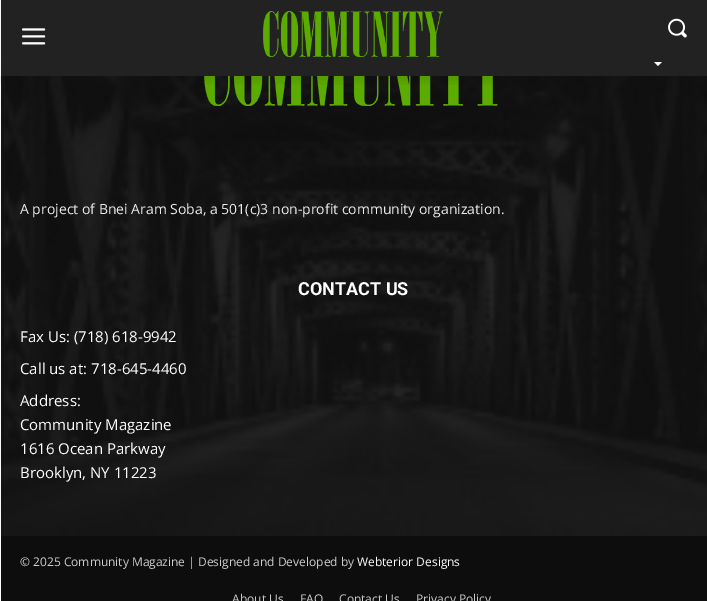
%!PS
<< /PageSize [707 601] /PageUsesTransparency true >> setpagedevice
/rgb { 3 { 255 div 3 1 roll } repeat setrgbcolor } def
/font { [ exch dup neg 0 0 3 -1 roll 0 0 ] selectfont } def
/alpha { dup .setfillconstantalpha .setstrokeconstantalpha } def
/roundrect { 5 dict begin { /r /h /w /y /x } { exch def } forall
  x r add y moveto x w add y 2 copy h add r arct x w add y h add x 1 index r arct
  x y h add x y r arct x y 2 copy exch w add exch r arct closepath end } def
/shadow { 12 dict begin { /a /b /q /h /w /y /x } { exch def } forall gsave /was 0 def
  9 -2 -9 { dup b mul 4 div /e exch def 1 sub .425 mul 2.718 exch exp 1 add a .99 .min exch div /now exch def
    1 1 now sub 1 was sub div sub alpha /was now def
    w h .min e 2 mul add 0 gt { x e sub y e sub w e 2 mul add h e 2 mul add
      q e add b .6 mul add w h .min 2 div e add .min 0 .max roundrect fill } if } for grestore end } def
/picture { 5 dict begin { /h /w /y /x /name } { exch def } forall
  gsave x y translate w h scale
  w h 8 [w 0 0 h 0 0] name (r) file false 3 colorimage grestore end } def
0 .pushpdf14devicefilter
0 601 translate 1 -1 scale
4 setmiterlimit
255 255 255 rgb
0 0 707 601 rectfill
17 17 17 rgb
1 76 706 460 rectfill
(img/4.rgb) 0 0 707 536 picture
34 34 34 rgb
1 0 706 76 rectfill
(img/1.rgb) 22 28 24 17 picture
(img/2.rgb) 263 11 180 46 picture
(img/3.rgb) 668 18 19 20 picture
255 255 255 rgb
654 62 moveto 662 62 lineto 658 66 lineto closepath fill
(img/5.rgb) 204 76 294 30 picture
gsave
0 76 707 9 rectclip
0 0 0 rgb
1 6 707 76 0 4 0.08 shadow
grestore
13 13 13 rgb
1 536 706 65 rectfill
/OpenSans-Regular 14 font
234 234 234 rgb
20 214 moveto (A project of Bnei Aram Soba, a 501\(c\)3 non-profit community organization.) show
/Roboto-Bold 18 font
255 255 255 rgb
298 295 moveto (CONTACT US) show
/OpenSans-Regular 15 font
[
  [(Fax Us: \(718\) 618-9942) 20 342]
  [(Call us at: 718-645-4460) 20 374]
  [(Address:) 20 406]
  [(Community Magazine) 20 430]
  [(1616 Ocean Parkway) 20 454]
  [(Brooklyn, NY 11223) 20 478]
] { aload pop moveto show } forall
/OpenSans-Regular 12 font
204 204 204 rgb
20 566 moveto (© 2025 Community Magazine | Designed and Developed by) show
255 255 255 rgb
357 566 moveto (Webterior Designs) show
204 204 204 rgb
[
  [(About Us) 232 603]
  [(FAQ) 300 603]
  [(Contact Us) 339 603]
  [(Privacy Policy) 416 603]
] { aload pop moveto show } forall
.poppdf14devicefilter showpage
